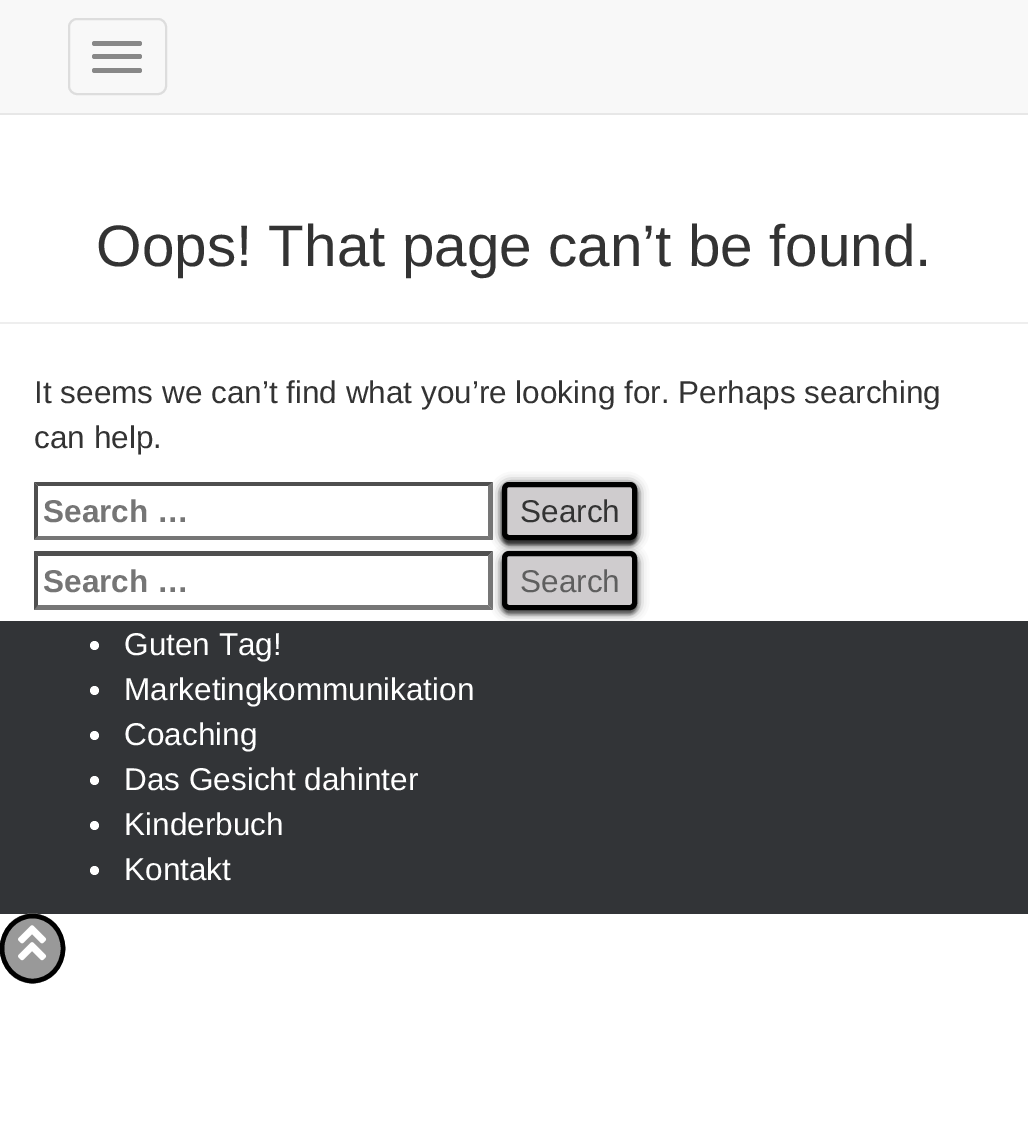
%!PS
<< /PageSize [1028 1126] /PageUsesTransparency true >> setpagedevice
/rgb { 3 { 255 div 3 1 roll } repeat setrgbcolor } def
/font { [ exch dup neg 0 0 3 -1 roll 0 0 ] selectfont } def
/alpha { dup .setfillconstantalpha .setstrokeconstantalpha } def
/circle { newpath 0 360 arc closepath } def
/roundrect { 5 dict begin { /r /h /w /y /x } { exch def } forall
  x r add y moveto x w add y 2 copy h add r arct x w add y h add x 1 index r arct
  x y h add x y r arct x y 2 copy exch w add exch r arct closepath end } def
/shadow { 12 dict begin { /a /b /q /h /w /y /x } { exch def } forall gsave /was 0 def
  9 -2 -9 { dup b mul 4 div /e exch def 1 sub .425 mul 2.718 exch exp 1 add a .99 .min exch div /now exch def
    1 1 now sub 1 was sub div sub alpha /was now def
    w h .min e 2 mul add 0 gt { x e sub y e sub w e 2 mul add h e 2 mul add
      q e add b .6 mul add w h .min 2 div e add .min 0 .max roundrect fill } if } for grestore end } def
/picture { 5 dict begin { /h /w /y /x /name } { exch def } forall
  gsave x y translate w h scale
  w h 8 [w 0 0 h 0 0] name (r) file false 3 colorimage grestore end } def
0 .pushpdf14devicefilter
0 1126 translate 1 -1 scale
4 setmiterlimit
255 255 255 rgb
0 0 1028 1126 rectfill
248 248 248 rgb
0 0 1028 113 rectfill
231 231 231 rgb
0 113 1028 2 rectfill
221 221 221 rgb
2 setlinewidth
69 19 97 75 8 roundrect stroke
136 136 136 rgb
92 41 50 5 2.5 roundrect fill
92 54 50 5 2.5 roundrect fill
92 68 50 5 2.5 roundrect fill
238 238 238 rgb
0 322 1028 2 rectfill
79 79 79 rgb
34 482 moveto 493 482 lineto 488 486 lineto 38 486 lineto closepath fill
118 118 118 rgb
493 482 moveto 493 540 lineto 488 536 lineto 488 486 lineto closepath fill
493 540 moveto 34 540 lineto 38 536 lineto 488 536 lineto closepath fill
79 79 79 rgb
34 540 moveto 34 482 lineto 38 486 lineto 38 536 lineto closepath fill
gsave
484 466 moveto 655 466 lineto 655 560 lineto 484 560 lineto closepath 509 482 moveto 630 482 lineto 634 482 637 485 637 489 curveto 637 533 lineto 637 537 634 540 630 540 curveto 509 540 lineto 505 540 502 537 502 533 curveto 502 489 lineto 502 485 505 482 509 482 curveto closepath eoclip newpath
51 51 51 rgb
502 484 135 58 7 5.5 1 shadow
grestore
gsave
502 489 moveto 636 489 lineto 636 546 lineto 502 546 lineto closepath 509 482 moveto 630 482 lineto 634 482 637 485 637 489 curveto 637 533 lineto 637 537 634 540 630 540 curveto 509 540 lineto 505 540 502 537 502 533 curveto 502 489 lineto 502 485 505 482 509 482 curveto closepath eoclip newpath
51 51 51 rgb
506 493 126 49 2 1 1 shadow
grestore
gsave
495 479 moveto 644 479 lineto 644 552 lineto 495 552 lineto closepath 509 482 moveto 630 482 lineto 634 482 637 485 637 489 curveto 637 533 lineto 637 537 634 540 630 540 curveto 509 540 lineto 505 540 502 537 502 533 curveto 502 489 lineto 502 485 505 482 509 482 curveto closepath eoclip newpath
51 51 51 rgb
502 486 135 59 7 2 1 shadow
grestore
0.2 alpha
15 0 8 rgb
504.5 484.5 130 53 4.5 roundrect fill
1 alpha
0 0 0 rgb
5 setlinewidth
504.5 484.5 130 53 4.5 roundrect stroke
79 79 79 rgb
34 551 moveto 493 551 lineto 488 556 lineto 38 556 lineto closepath fill
118 118 118 rgb
493 551 moveto 493 610 lineto 488 605 lineto 488 556 lineto closepath fill
493 610 moveto 34 610 lineto 38 605 lineto 488 605 lineto closepath fill
79 79 79 rgb
34 610 moveto 34 551 lineto 38 556 lineto 38 605 lineto closepath fill
50 52 55 rgb
0 621 1028 293 rectfill
gsave
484 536 moveto 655 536 lineto 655 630 lineto 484 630 lineto closepath 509 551 moveto 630 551 lineto 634 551 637 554 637 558 curveto 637 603 lineto 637 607 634 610 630 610 curveto 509 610 lineto 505 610 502 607 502 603 curveto 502 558 lineto 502 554 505 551 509 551 curveto closepath eoclip newpath
94 94 94 rgb
502 554 135 58 7 5.5 1 shadow
grestore
gsave
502 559 moveto 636 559 lineto 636 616 lineto 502 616 lineto closepath 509 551 moveto 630 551 lineto 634 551 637 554 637 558 curveto 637 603 lineto 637 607 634 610 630 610 curveto 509 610 lineto 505 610 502 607 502 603 curveto 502 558 lineto 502 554 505 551 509 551 curveto closepath eoclip newpath
94 94 94 rgb
506 563 126 49 2 1 1 shadow
grestore
gsave
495 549 moveto 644 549 lineto 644 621 lineto 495 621 lineto closepath 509 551 moveto 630 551 lineto 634 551 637 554 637 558 curveto 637 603 lineto 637 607 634 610 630 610 curveto 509 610 lineto 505 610 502 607 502 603 curveto 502 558 lineto 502 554 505 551 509 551 curveto closepath eoclip newpath
94 94 94 rgb
502 556 135 58 7 2 1 shadow
grestore
0.2 alpha
15 0 8 rgb
504.5 553.5 130 54 4.5 roundrect fill
1 alpha
0 0 0 rgb
504.5 553.5 130 54 4.5 roundrect stroke
255 255 255 rgb
94.5 645.5 4.5 circle fill
94.5 690.5 4.5 circle fill
94.5 735.5 4.5 circle fill
94.5 780.5 4.5 circle fill
94.5 825.5 4.5 circle fill
94.5 870.5 4.5 circle fill
153 153 153 rgb
32.5 913.5 moveto 50.5 913.5 65 929 65 948.5 curveto 65 968 50.5 983.5 32.5 983.5 curveto 14.5 983.5 0 968 0 948.5 curveto 0 929 14.5 913.5 32.5 913.5 curveto closepath fill
0 0 0 rgb
4.5 setlinewidth
32.5 916 moveto 49.5 916 63 930.5 63 948.5 curveto 63 966.5 49.5 981 32.5 981 curveto 16 981 2 966.5 2 948.5 curveto 2 930.5 16 916 32.5 916 curveto closepath stroke
(img/1.rgb) 18 925 29 36 picture
/LiberationSans-Regular 58.5 font
51 51 51 rgb
96 266 moveto (Oops! That page can’t be found.) show
/LiberationSans-Regular 31.5 font
34 403 moveto (It seems we can’t find what you’re looking for. Perhaps searching) show
34 448 moveto (can help.) show
/LiberationSans-Bold 31.5 font
117 117 117 rgb
43 522 moveto (Search …) show
/LiberationSans-Regular 31.5 font
51 51 51 rgb
520 522 moveto (Search) show
/LiberationSans-Bold 31.5 font
117 117 117 rgb
43 592 moveto (Search …) show
/LiberationSans-Regular 31.5 font
94 94 94 rgb
520 592 moveto (Search) show
255 255 255 rgb
[
  [(Guten Tag!) 124 655]
  [(Marketingkommunikation) 124 700]
  [(Coaching) 124 745]
  [(Das Gesicht dahinter) 124 790]
  [(Kinderbuch) 124 835]
  [(Kontakt) 124 880]
] { aload pop moveto show } forall
.poppdf14devicefilter showpage
